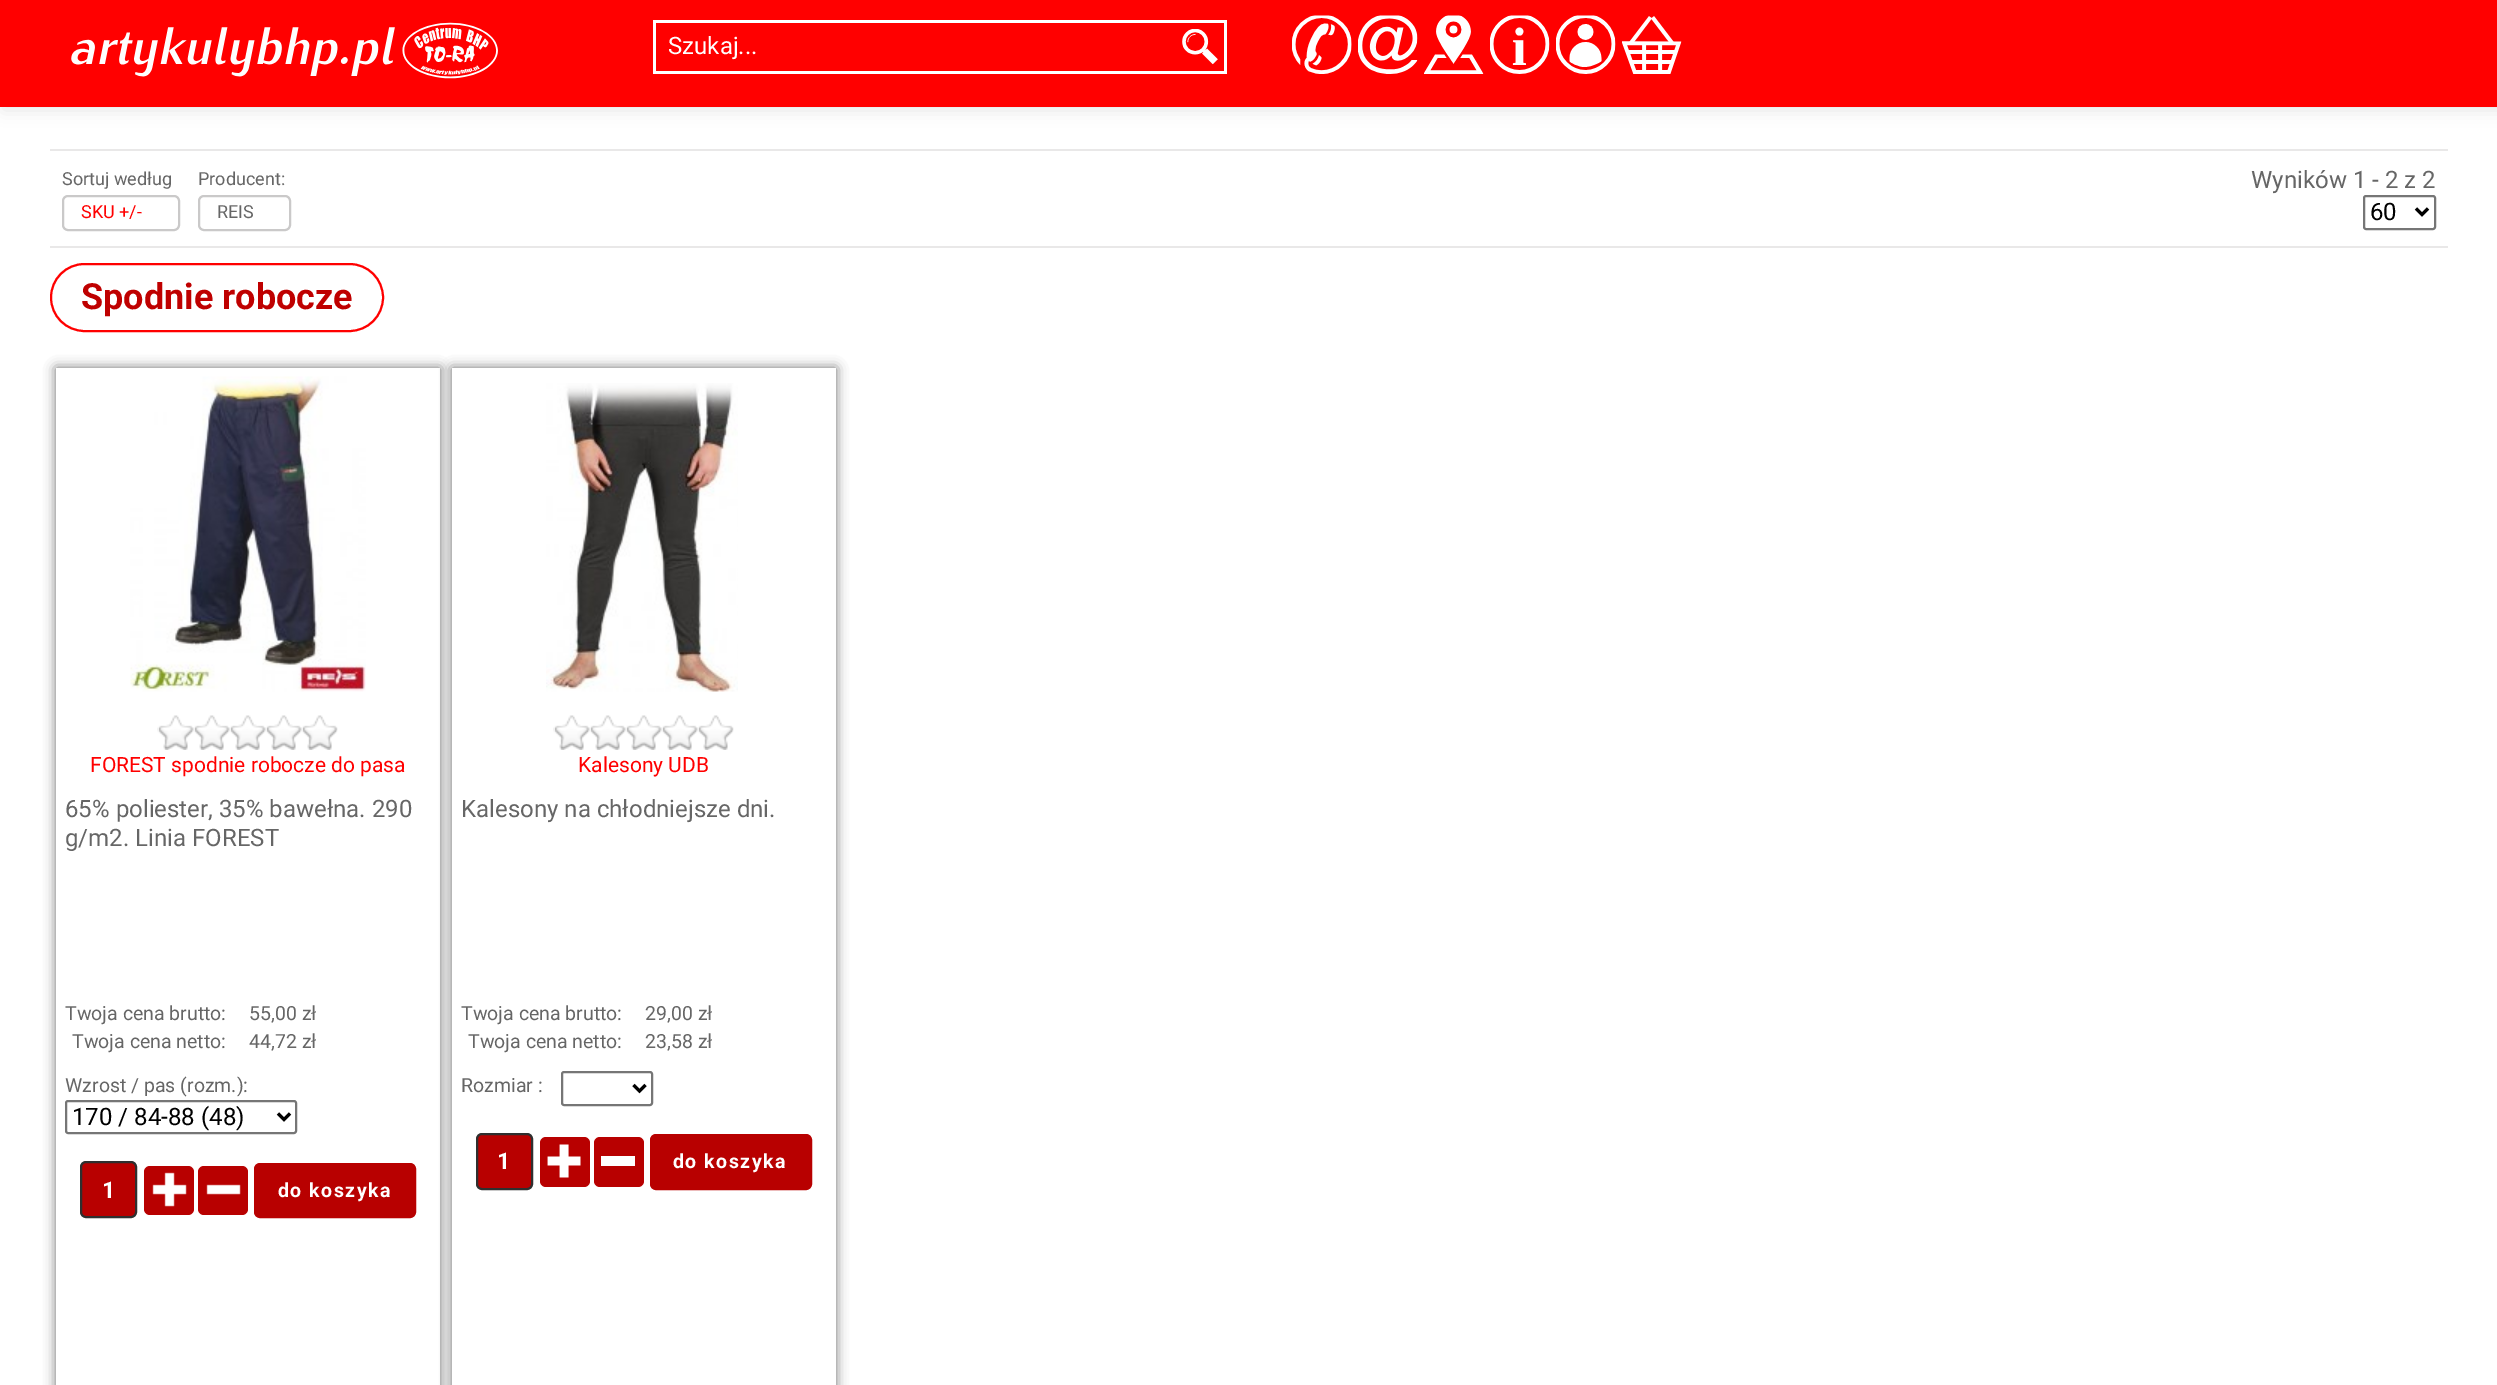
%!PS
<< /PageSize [2497 1385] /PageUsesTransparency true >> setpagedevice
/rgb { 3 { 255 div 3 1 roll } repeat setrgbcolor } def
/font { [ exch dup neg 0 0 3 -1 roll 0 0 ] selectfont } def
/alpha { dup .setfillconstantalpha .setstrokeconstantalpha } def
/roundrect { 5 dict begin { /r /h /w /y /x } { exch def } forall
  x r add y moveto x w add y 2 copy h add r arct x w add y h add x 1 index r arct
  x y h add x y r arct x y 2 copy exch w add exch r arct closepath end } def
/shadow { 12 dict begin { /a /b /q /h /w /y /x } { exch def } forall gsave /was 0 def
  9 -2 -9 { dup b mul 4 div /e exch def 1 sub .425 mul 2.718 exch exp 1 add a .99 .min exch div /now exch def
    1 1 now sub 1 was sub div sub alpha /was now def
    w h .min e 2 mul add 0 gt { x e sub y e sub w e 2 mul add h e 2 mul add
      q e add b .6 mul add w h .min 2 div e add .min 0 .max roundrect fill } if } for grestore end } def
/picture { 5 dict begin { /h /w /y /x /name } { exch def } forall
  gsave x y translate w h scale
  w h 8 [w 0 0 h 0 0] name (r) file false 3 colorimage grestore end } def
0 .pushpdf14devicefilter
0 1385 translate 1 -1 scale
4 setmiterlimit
255 255 255 rgb
0 0 2497 1385 rectfill
0 0 0 rgb
3 3 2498 107 0 8 0.1 shadow
255 0 0 rgb
0 0 2497 107 rectfill
(img/1.rgb) 71 22 427 57 picture
[
  [653 20 574 3 255 255 255]
  [653 71 526 3 255 255 255]
  [653 20 3 54 255 255 255]
  [1224 20 3 54 255 255 255]
  [1176 71 51 3 255 255 255]
] { aload pop rgb rectfill } forall
(img/2.rgb) 1182 29 36 36 picture
(img/3.rgb) 1292 15 60 59 picture
(img/4.rgb) 1358 15 60 59 picture
(img/5.rgb) 1424 15 60 59 picture
(img/6.rgb) 1490 15 60 59 picture
(img/7.rgb) 1556 15 60 59 picture
(img/8.rgb) 1622 16 60 58 picture
233 232 232 rgb
50 149 2398 2 rectfill
50 246 2398 2 rectfill
202 201 201 rgb
2 setlinewidth
63 196 116 34 5 roundrect stroke
199 196 91 34 5 roundrect stroke
118 118 118 rgb
2364 196 71 33 2 roundrect stroke
0 0 0 rgb
3 setlinewidth
2416 208.5 moveto 2422 214.5 lineto 2428 208.5 lineto stroke
255 0 0 rgb
2 setlinewidth
51 264 332 67 33.5 roundrect stroke
111 111 111 rgb
56 368 384 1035 0 6 1 shadow
255 255 255 rgb
56 368 384 1017 rectfill
(img/9.rgb) 130 376 236 316 picture
(img/10.rgb) 157 715 181 35 picture
118 118 118 rgb
66 1101 230 32 2 roundrect stroke
0 0 0 rgb
3 setlinewidth
278 1113.5 moveto 284 1119.5 lineto 290 1113.5 lineto stroke
184 0 0 rgb
81 1162 55 55 5 roundrect gsave fill grestore
47 47 47 rgb
2 setlinewidth
stroke
184 0 0 rgb
144 1166 50 49 6 roundrect fill
(img/11.rgb) 152 1172 35 35 picture
198 1166 50 49 6 roundrect fill
(img/12.rgb) 206 1184 35 11 picture
255 1164 160 53 5 roundrect gsave fill grestore
stroke
111 111 111 rgb
452 368 384 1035 0 6 1 shadow
255 255 255 rgb
452 368 384 1017 rectfill
(img/13.rgb) 546 383 192 309 picture
(img/14.rgb) 553 715 181 35 picture
118 118 118 rgb
562 1072 90 33 2 roundrect stroke
0 0 0 rgb
3 setlinewidth
633.5 1085 moveto 639.5 1091 lineto 645.5 1085 lineto stroke
184 0 0 rgb
477 1134 55 55 5 roundrect gsave fill grestore
47 47 47 rgb
2 setlinewidth
stroke
184 0 0 rgb
540 1137 50 50 6 roundrect fill
(img/15.rgb) 547 1144 34 34 picture
594 1137 50 50 6 roundrect fill
255 255 255 rgb
601 1156 34 10 rectfill
184 0 0 rgb
651 1135 160 54 5 roundrect gsave fill grestore
stroke
/Roboto-Regular 24 font
255 255 255 rgb
668 54 moveto (Szukaj...) show
/Roboto-Regular 18 font
102 102 102 rgb
62 185 moveto (Sortuj według) show
255 0 0 rgb
81 218 moveto (SKU +/-) show
102 102 102 rgb
198 185 moveto (Producent:) show
217 218 moveto (REIS) show
/Roboto-Regular 24 font
2251 188 moveto (Wyników 1 - 2 z 2) show
0 0 0 rgb
2370 220 moveto (60) show
/Roboto-Bold 36 font
191 0 0 rgb
81 309 moveto (Spodnie robocze) show
/Roboto-Regular 21 font
255 0 0 rgb
90 772 moveto (FOREST spodnie robocze do pasa) show
/Roboto-Regular 24 font
102 102 102 rgb
65 817 moveto (65% poliester, 35% bawełna. 290) show
65 846 moveto (g/m2. Linia FOREST) show
/Roboto-Regular 19.5 font
[
  [(Twoja cena brutto:) 65 1020]
  [(55,00 zł) 249 1020]
  [(Twoja cena netto:) 72 1048]
  [(44,72 zł) 249 1048]
  [(Wzrost / pas \(rozm.\):) 65 1092]
] { aload pop moveto show } forall
/Roboto-Regular 24 font
0 0 0 rgb
72 1125 moveto (170 / 84-88 \(48\)) show
/Roboto-Bold 23 font
255 255 255 rgb
102 1198 moveto (1) show
/Roboto-Bold 19.5 font
278 1197 moveto 1.5 0 (do koszyka) ashow
/Roboto-Regular 21 font
255 0 0 rgb
578 772 moveto (Kalesony UDB) show
/Roboto-Regular 24 font
102 102 102 rgb
461 817 moveto (Kalesony na chłodniejsze dni.) show
/Roboto-Regular 19.5 font
[
  [(Twoja cena brutto:) 461 1020]
  [(29,00 zł) 645 1020]
  [(Twoja cena netto:) 468 1048]
  [(23,58 zł) 645 1048]
  [(Rozmiar :) 461 1092]
] { aload pop moveto show } forall
/Roboto-Bold 23 font
255 255 255 rgb
497 1169 moveto (1) show
/Roboto-Bold 19.5 font
673 1168 moveto 1.5 0 (do koszyka) ashow
.poppdf14devicefilter showpage
